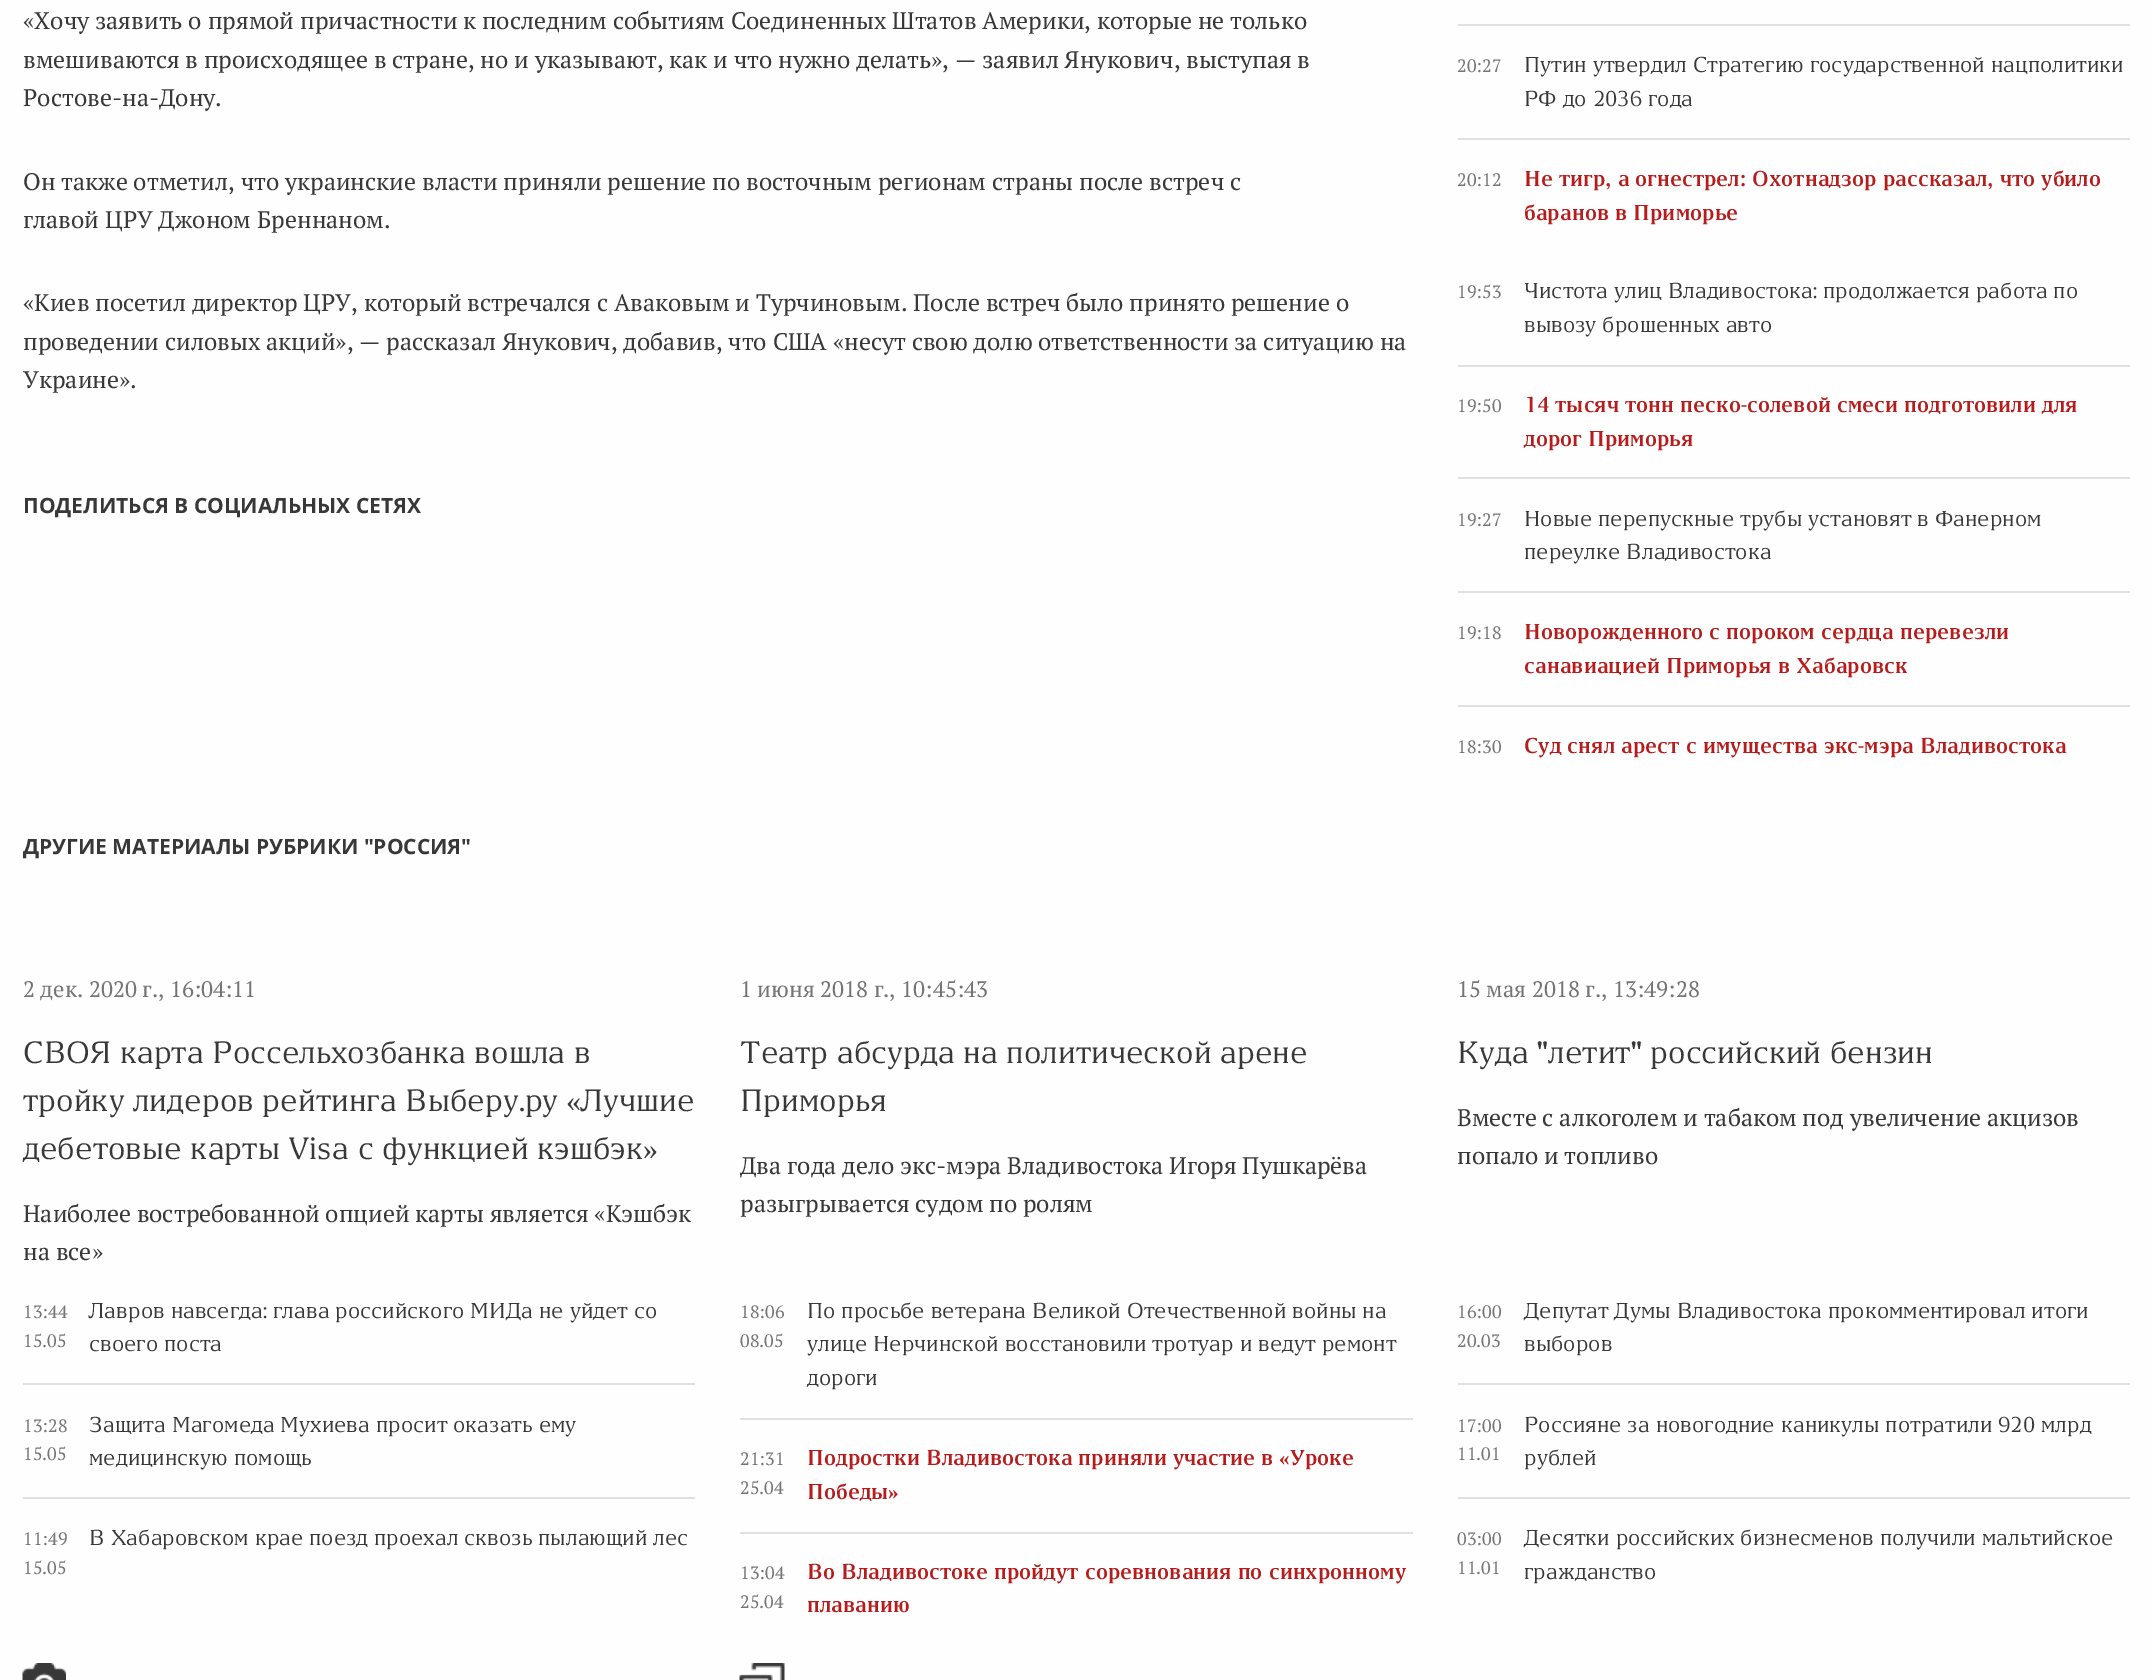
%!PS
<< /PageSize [2152 1680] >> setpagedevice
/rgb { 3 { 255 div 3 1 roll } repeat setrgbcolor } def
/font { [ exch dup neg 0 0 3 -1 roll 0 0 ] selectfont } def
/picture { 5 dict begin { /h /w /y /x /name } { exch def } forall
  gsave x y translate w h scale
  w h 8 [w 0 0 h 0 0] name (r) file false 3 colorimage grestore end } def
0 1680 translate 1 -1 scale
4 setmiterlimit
254 254 254 rgb
0 0 2152 1680 rectfill
[
  [1458 24 672 2 224 224 224]
  [1458 138 672 2 224 224 224]
  [1458 365 672 2 224 224 224]
  [1458 477 672 2 224 224 224]
  [1458 591 672 2 224 224 224]
  [1458 705 672 2 224 224 224]
  [23 1383 672 2 224 224 224]
  [23 1497 672 2 224 224 224]
  [740 1418 673 2 224 224 224]
  [740 1532 673 2 224 224 224]
  [1458 1383 672 2 224 224 224]
  [1458 1497 672 2 224 224 224]
] { aload pop rgb rectfill } forall
(img/1.rgb) 22 1663 44 17 picture
(img/2.rgb) 739 1663 46 17 picture
/PTSerif-Regular 24 font
56 56 56 rgb
[
  [(«Хочу заявить о прямой причастности к последним событиям Соединенных Штатов Америки, которые не только) 23 29]
  [(вмешиваются в происходящее в стране, но и указывают, как и что нужно делать», — заявил Янукович, выступая в) 23 68]
  [(Ростове-на-Дону.) 23 106]
  [(Он также отметил, что украинские власти приняли решение по восточным регионам страны после встреч с) 23 190]
  [(главой ЦРУ Джоном Бреннаном.) 23 228]
  [(«Киев посетил директор ЦРУ, который встречался с Аваковым и Турчиновым. После встреч было принято решение о) 23 311]
  [(проведении силовых акций», — рассказал Янукович, добавив, что США «несут свою долю ответственности за ситуацию на) 23 350]
  [(Украине».) 23 388]
] { aload pop moveto show } forall
/OpenSans-Bold 21 font
23 513 moveto (ПОДЕЛИТЬСЯ В СОЦИАЛЬНЫХ СЕТЯХ) show
/PTSerif-Regular 18 font
117 117 117 rgb
1457 72 moveto (20:27) show
/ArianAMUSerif-Regular 21 font
56 56 56 rgb
1524 72 moveto (Путин утвердил Стратегию государственной нацполитики) show
1524 106 moveto (РФ до 2036 года) show
/PTSerif-Regular 18 font
117 117 117 rgb
1457 186 moveto (20:12) show
/ArianAMUSerif-Bold 21 font
183 28 28 rgb
1524 186 moveto (Не тигр, а огнестрел: Охотнадзор рассказал, что убило) show
1524 220 moveto (баранов в Приморье) show
/PTSerif-Regular 18 font
117 117 117 rgb
1457 298 moveto (19:53) show
/ArianAMUSerif-Regular 21 font
56 56 56 rgb
1524 298 moveto (Чистота улиц Владивостока: продолжается работа по) show
1524 332 moveto (вывозу брошенных авто) show
/PTSerif-Regular 18 font
117 117 117 rgb
1457 412 moveto (19:50) show
/ArianAMUSerif-Bold 21 font
183 28 28 rgb
1524 412 moveto (14 тысяч тонн песко-солевой смеси подготовили для) show
1524 446 moveto (дорог Приморья) show
/PTSerif-Regular 18 font
117 117 117 rgb
1457 526 moveto (19:27) show
/ArianAMUSerif-Regular 21 font
56 56 56 rgb
1524 526 moveto (Новые перепускные трубы установят в Фанерном) show
1524 559 moveto (переулке Владивостока) show
/PTSerif-Regular 18 font
117 117 117 rgb
1457 639 moveto (19:18) show
/ArianAMUSerif-Bold 21 font
183 28 28 rgb
1524 639 moveto (Новорожденного с пороком сердца перевезли) show
1524 673 moveto (санавиацией Приморья в Хабаровск) show
/PTSerif-Regular 18 font
117 117 117 rgb
1457 753 moveto (18:30) show
/ArianAMUSerif-Bold 21 font
183 28 28 rgb
1524 753 moveto (Суд снял арест с имущества экс-мэра Владивостока) show
/OpenSans-Bold 21 font
56 56 56 rgb
23 854 moveto (ДРУГИЕ МАТЕРИАЛЫ РУБРИКИ "РОССИЯ") show
/PTSerif-Regular 22.5 font
117 117 117 rgb
23 997 moveto (2 дек. 2020 г., 16:04:11) show
/ArianAMUSerif-Regular 30 font
56 56 56 rgb
23 1063 moveto (СВОЯ карта Россельхозбанка вошла в) show
23 1111 moveto (тройку лидеров рейтинга Выберу.ру) show
/LiberationSerif-Regular 30 font
566 1111 moveto («) show
/ArianAMUSerif-Regular 30 font
581 1111 moveto (Лучшие) show
23 1159 moveto (дебетовые карты Visa с функцией кэшбэк) show
/LiberationSerif-Regular 30 font
643 1159 moveto (») show
/PTSerif-Regular 24 font
23 1222 moveto (Наиболее востребованной опцией карты является «Кэшбэк) show
23 1260 moveto (на все») show
/PTSerif-Regular 22.5 font
117 117 117 rgb
740 997 moveto (1 июня 2018 г., 10:45:43) show
/ArianAMUSerif-Regular 30 font
56 56 56 rgb
740 1063 moveto (Театр абсурда на политической арене) show
740 1111 moveto (Приморья) show
/PTSerif-Regular 24 font
740 1174 moveto (Два года дело экс-мэра Владивостока Игоря Пушкарёва) show
740 1212 moveto (разыгрывается судом по ролям) show
/PTSerif-Regular 22.5 font
117 117 117 rgb
1457 997 moveto (15 мая 2018 г., 13:49:28) show
/ArianAMUSerif-Regular 30 font
56 56 56 rgb
1457 1063 moveto (Куда "летит" российский бензин) show
/PTSerif-Regular 24 font
1457 1126 moveto (Вместе с алкоголем и табаком под увеличение акцизов) show
1457 1164 moveto (попало и топливо) show
/PTSerif-Regular 18 font
117 117 117 rgb
23 1318 moveto (13:44) show
23 1347 moveto (15.05) show
/ArianAMUSerif-Regular 21 font
56 56 56 rgb
89 1318 moveto (Лавров навсегда: глава российского МИДа не уйдет со) show
89 1351 moveto (своего поста) show
/PTSerif-Regular 18 font
117 117 117 rgb
23 1432 moveto (13:28) show
23 1460 moveto (15.05) show
/ArianAMUSerif-Regular 21 font
56 56 56 rgb
89 1432 moveto (Защита Магомеда Мухиева просит оказать ему) show
89 1465 moveto (медицинскую помощь) show
/PTSerif-Regular 18 font
117 117 117 rgb
23 1545 moveto (11:49) show
23 1574 moveto (15.05) show
/ArianAMUSerif-Regular 21 font
56 56 56 rgb
89 1545 moveto (В Хабаровском крае поезд проехал сквозь пылающий лес) show
/PTSerif-Regular 18 font
117 117 117 rgb
740 1318 moveto (18:06) show
740 1347 moveto (08.05) show
/ArianAMUSerif-Regular 21 font
56 56 56 rgb
[
  [(По просьбе ветерана Великой Отечественной войны на) 807 1318]
  [(улице Нерчинской восстановили тротуар и ведут ремонт) 807 1351]
  [(дороги) 807 1385]
] { aload pop moveto show } forall
/PTSerif-Regular 18 font
117 117 117 rgb
740 1465 moveto (21:31) show
740 1494 moveto (25.04) show
/ArianAMUSerif-Bold 21 font
183 28 28 rgb
807 1465 moveto (Подростки Владивостока приняли участие в) show
/LiberationSerif-Bold 21 font
1279 1465 moveto («) show
/ArianAMUSerif-Bold 21 font
1290 1465 moveto (Уроке) show
807 1499 moveto (Победы) show
/LiberationSerif-Bold 21 font
888 1499 moveto (») show
/PTSerif-Regular 18 font
117 117 117 rgb
740 1579 moveto (13:04) show
740 1608 moveto (25.04) show
/ArianAMUSerif-Bold 21 font
183 28 28 rgb
807 1579 moveto (Во Владивостоке пройдут соревнования по синхронному) show
807 1612 moveto (плаванию) show
/PTSerif-Regular 18 font
117 117 117 rgb
1457 1318 moveto (16:00) show
1457 1347 moveto (20.03) show
/ArianAMUSerif-Regular 21 font
56 56 56 rgb
1524 1318 moveto (Депутат Думы Владивостока прокомментировал итоги) show
1524 1351 moveto (выборов) show
/PTSerif-Regular 18 font
117 117 117 rgb
1457 1432 moveto (17:00) show
1457 1460 moveto (11.01) show
/ArianAMUSerif-Regular 21 font
56 56 56 rgb
1524 1432 moveto (Россияне за новогодние каникулы потратили 920 млрд) show
1524 1465 moveto (рублей) show
/PTSerif-Regular 18 font
117 117 117 rgb
1457 1545 moveto (03:00) show
1457 1574 moveto (11.01) show
/ArianAMUSerif-Regular 21 font
56 56 56 rgb
1524 1545 moveto (Десятки российских бизнесменов получили мальтийское) show
1524 1579 moveto (гражданство) show
showpage
